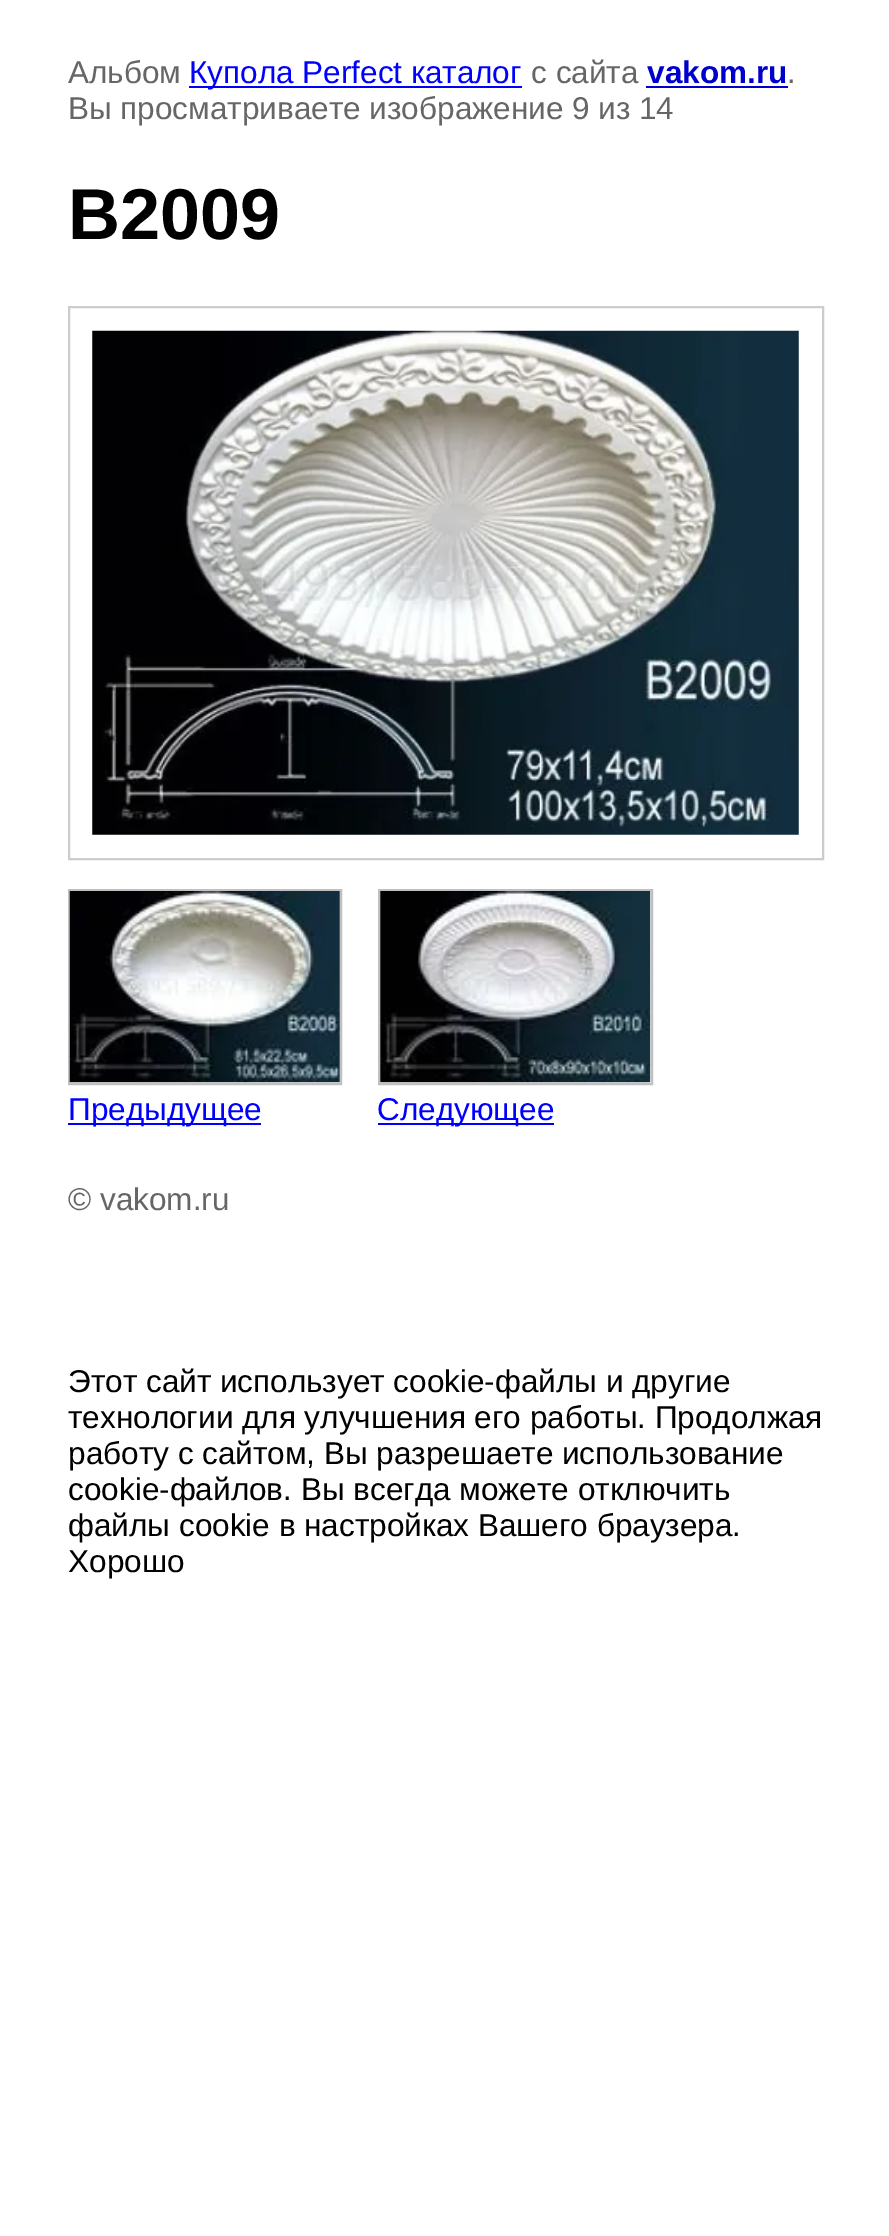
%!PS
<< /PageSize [889 2236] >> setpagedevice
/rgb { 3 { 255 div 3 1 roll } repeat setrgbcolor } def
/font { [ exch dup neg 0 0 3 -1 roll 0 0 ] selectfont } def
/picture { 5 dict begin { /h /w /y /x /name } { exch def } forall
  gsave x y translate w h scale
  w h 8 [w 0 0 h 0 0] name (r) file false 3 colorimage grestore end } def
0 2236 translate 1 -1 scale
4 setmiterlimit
255 255 255 rgb
0 0 889 2236 rectfill
0 0 255 rgb
189 86 333 2 rectfill
0 0 204 rgb
646 86 142 2 rectfill
204 204 204 rgb
2 setlinewidth
69 307 754 552 rectstroke
(img/1.rgb) 92 330 707 505 picture
192 192 192 rgb
69 890 272 194 rectstroke
(img/2.rgb) 69 891 271 192 picture
0 0 255 rgb
68 1123 193 2 rectfill
192 192 192 rgb
379 890 273 194 rectstroke
(img/3.rgb) 380 891 271 192 picture
0 0 255 rgb
378 1123 176 2 rectfill
/LiberationSans-Regular 31.5 font
102 102 102 rgb
68 83 moveto (Альбом) show
0 0 255 rgb
189 83 moveto (Купола Perfect каталог) show
102 102 102 rgb
531 83 moveto (с сайта) show
/LiberationSans-Bold 31.5 font
0 0 204 rgb
647 83 moveto (vakom.ru) show
/LiberationSans-Regular 31.5 font
102 102 102 rgb
787 83 moveto (.) show
68 119 moveto (Вы просматриваете изображение 9 из 14) show
/LiberationSans-Bold 72 font
0 0 0 rgb
68 239 moveto (B2009) show
/LiberationSans-Regular 31.5 font
0 0 255 rgb
68 1120 moveto (Предыдущее) show
377 1120 moveto (Следующее) show
102 102 102 rgb
68 1210 moveto (© vakom.ru) show
0 0 0 rgb
[
  [(Этот сайт использует cookie-файлы и другие) 68 1392]
  [(технологии для улучшения его работы. Продолжая) 68 1428]
  [(работу с сайтом, Вы разрешаете использование) 68 1464]
  [(cookie-файлов. Вы всегда можете отключить) 68 1500]
  [(файлы cookie в настройках Вашего браузера.) 68 1536]
  [(Хорошо) 68 1572]
] { aload pop moveto show } forall
showpage
